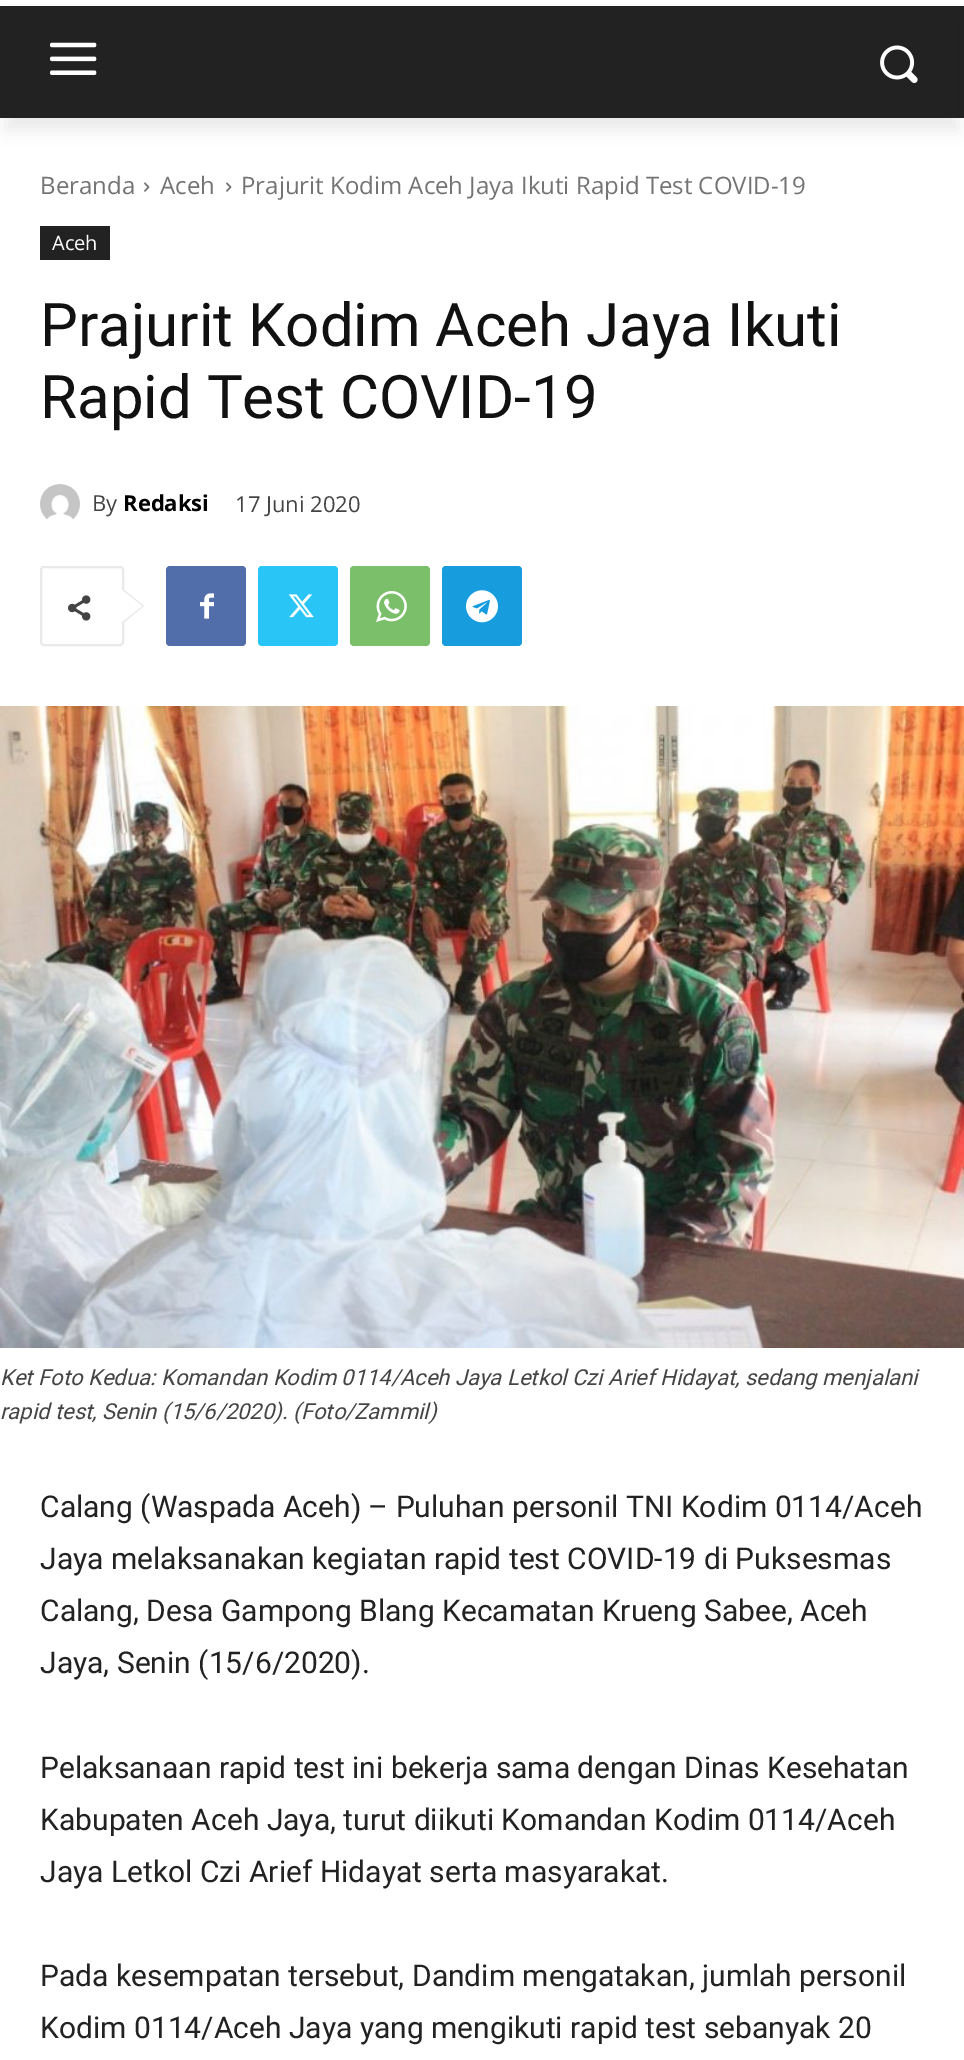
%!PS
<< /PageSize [964 2060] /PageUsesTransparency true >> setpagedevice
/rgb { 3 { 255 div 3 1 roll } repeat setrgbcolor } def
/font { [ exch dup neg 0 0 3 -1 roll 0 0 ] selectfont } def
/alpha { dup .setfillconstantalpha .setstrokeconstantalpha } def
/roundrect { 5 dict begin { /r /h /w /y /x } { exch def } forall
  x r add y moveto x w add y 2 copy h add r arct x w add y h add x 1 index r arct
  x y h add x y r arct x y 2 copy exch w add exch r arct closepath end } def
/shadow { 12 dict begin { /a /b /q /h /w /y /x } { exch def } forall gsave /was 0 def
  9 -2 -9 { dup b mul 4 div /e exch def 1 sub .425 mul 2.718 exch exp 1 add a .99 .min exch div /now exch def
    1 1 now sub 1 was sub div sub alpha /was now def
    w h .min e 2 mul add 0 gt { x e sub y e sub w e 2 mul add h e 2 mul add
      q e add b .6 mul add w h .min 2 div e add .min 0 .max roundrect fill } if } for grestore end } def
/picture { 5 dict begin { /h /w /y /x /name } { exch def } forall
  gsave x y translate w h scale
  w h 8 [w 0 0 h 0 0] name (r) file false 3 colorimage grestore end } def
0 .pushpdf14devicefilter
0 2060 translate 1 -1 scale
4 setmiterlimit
255 255 255 rgb
0 0 964 2060 rectfill
34 34 34 rgb
0 6 964 112 rectfill
(img/1.rgb) 50 42 47 33 picture
(img/2.rgb) 880 45 38 38 picture
gsave
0 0 moveto 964 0 lineto 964 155 lineto 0 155 lineto closepath 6 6 moveto 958 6 lineto 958 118 lineto 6 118 lineto closepath eoclip newpath
0 0 0 rgb
6 18 952 112 0 8 0.08 shadow
grestore
(img/3.rgb) 144 182 6 10 picture
(img/3.rgb) 226 182 6 10 picture
40 226 70 34 rectfill
(img/4.rgb) 40 484 40 36 picture
233 233 233 rgb
2 setlinewidth
41 567 82 78 3 roundrect stroke
122 624 moveto 122 588 lineto 144 606 lineto closepath fill
(img/5.rgb) 68 595 23 26 picture
255 255 255 rgb
122 622 moveto 122 590 lineto 142 606 lineto closepath fill
81 110 171 rgb
166 566 80 80 4 roundrect fill
(img/6.rgb) 200 593 14 26 picture
41 197 246 rgb
258 566 80 80 4 roundrect fill
(img/7.rgb) 288 594 26 24 picture
123 191 106 rgb
350 566 80 80 4 roundrect fill
(img/8.rgb) 376 591 31 31 picture
23 156 222 rgb
442 566 80 80 4 roundrect fill
(img/9.rgb) 466 590 32 33 picture
(img/10.rgb) 0 706 964 642 picture
/OpenSans-Regular 24 font
116 116 116 rgb
[
  [(Beranda) 40 194]
  [(Aceh) 160 194]
  [(Prajurit Kodim Aceh Jaya Ikuti Rapid Test COVID-19) 241 194]
] { aload pop moveto show } forall
/OpenSans-Regular 20 font
255 255 255 rgb
52 250 moveto (Aceh) show
/Roboto-Regular 60 font
17 17 17 rgb
40 346 moveto (Prajurit Kodim Aceh Jaya Ikuti) show
40 418 moveto (Rapid Test COVID-19) show
/OpenSans-Regular 22 font
68 68 68 rgb
92 511 moveto (By) show
/OpenSans-Bold 22 font
0 0 0 rgb
123 511 moveto (Redaksi) show
/OpenSans-Regular 22 font
68 68 68 rgb
235 512 moveto (17 Juni 2020) show
/Roboto-Italic 22 font
0 1385 moveto (Ket Foto Kedua: Komandan Kodim 0114/Aceh Jaya Letkol Czi Arief Hidayat, sedang menjalani) show
0 1419 moveto (rapid test, Senin \(15/6/2020\). \(Foto/Zammil\)) show
/Roboto-Regular 30 font
34 34 34 rgb
[
  [(Calang \(Waspada Aceh\) – Puluhan personil TNI Kodim 0114/Aceh) 40 1517]
  [(Jaya melaksanakan kegiatan rapid test COVID-19 di Puksesmas) 40 1569]
  [(Calang, Desa Gampong Blang Kecamatan Krueng Sabee, Aceh) 40 1621]
  [(Jaya, Senin \(15/6/2020\).) 40 1673]
  [(Pelaksanaan rapid test ini bekerja sama dengan Dinas Kesehatan) 40 1778]
  [(Kabupaten Aceh Jaya, turut diikuti Komandan Kodim 0114/Aceh) 40 1830]
  [(Jaya Letkol Czi Arief Hidayat serta masyarakat.) 40 1882]
  [(Pada kesempatan tersebut, Dandim mengatakan, jumlah personil) 40 1986]
  [(Kodim 0114/Aceh Jaya yang mengikuti rapid test sebanyak 20) 40 2038]
] { aload pop moveto show } forall
.poppdf14devicefilter showpage
